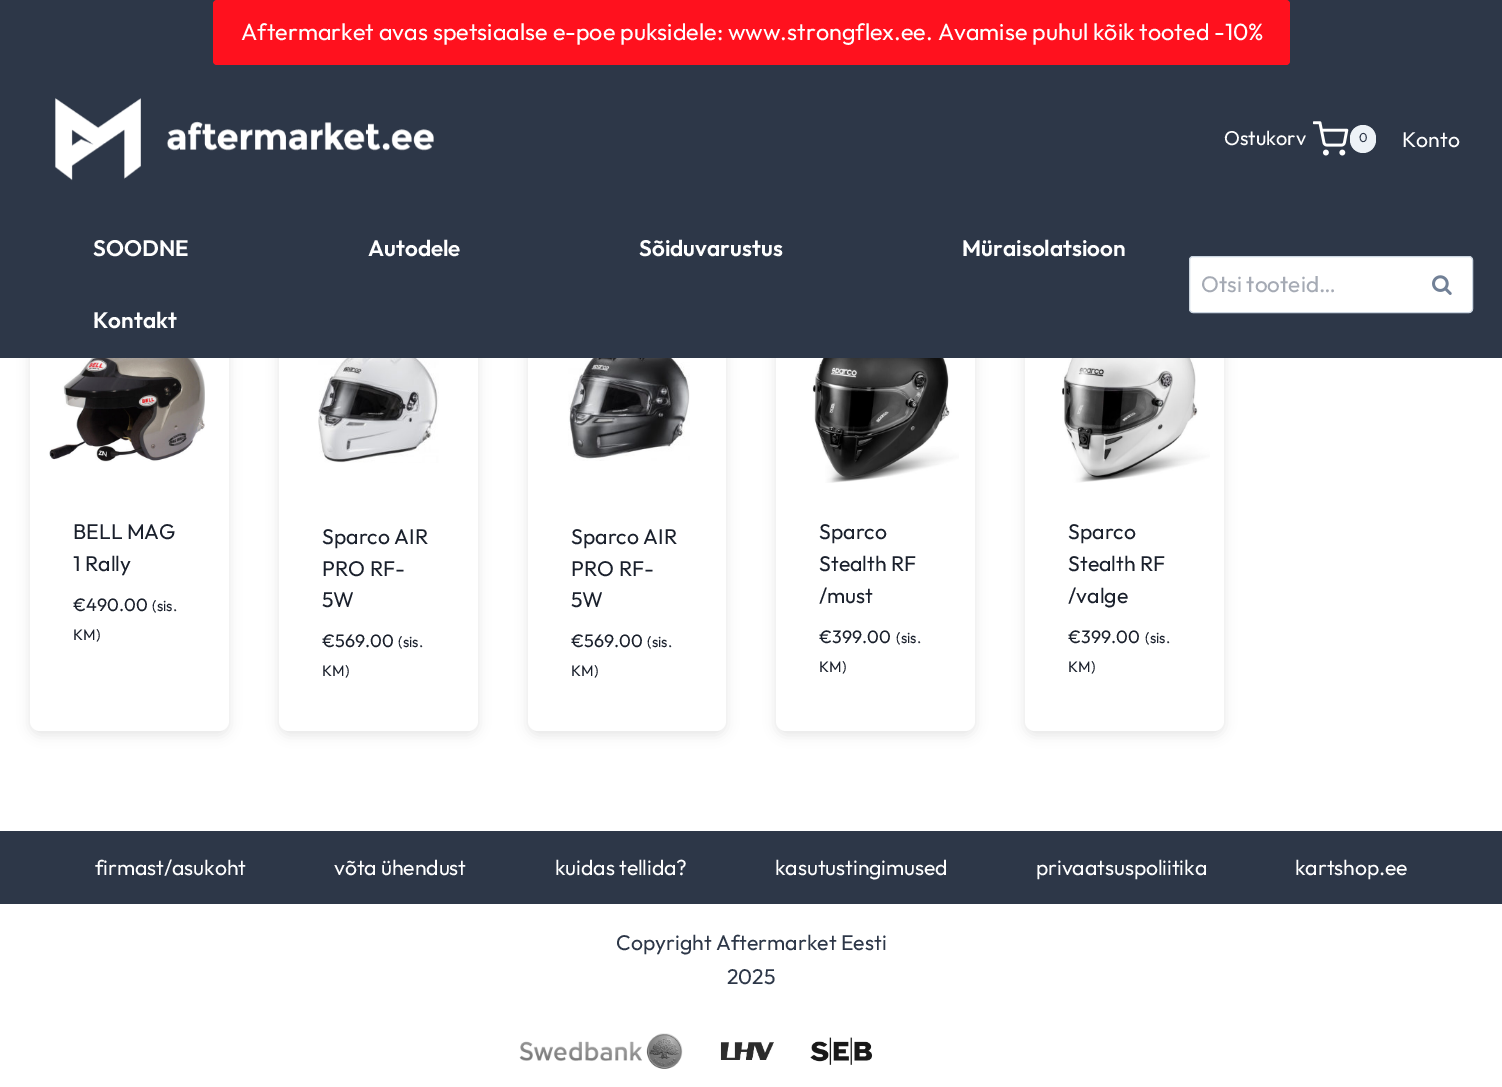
%!PS
<< /PageSize [1502 1087] /PageUsesTransparency true >> setpagedevice
/rgb { 3 { 255 div 3 1 roll } repeat setrgbcolor } def
/font { [ exch dup neg 0 0 3 -1 roll 0 0 ] selectfont } def
/alpha { dup .setfillconstantalpha .setstrokeconstantalpha } def
/roundrect { 5 dict begin { /r /h /w /y /x } { exch def } forall
  x r add y moveto x w add y 2 copy h add r arct x w add y h add x 1 index r arct
  x y h add x y r arct x y 2 copy exch w add exch r arct closepath end } def
/shadow { 12 dict begin { /a /b /q /h /w /y /x } { exch def } forall gsave /was 0 def
  9 -2 -9 { dup b mul 4 div /e exch def 1 sub .425 mul 2.718 exch exp 1 add a .99 .min exch div /now exch def
    1 1 now sub 1 was sub div sub alpha /was now def
    w h .min e 2 mul add 0 gt { x e sub y e sub w e 2 mul add h e 2 mul add
      q e add b .6 mul add w h .min 2 div e add .min 0 .max roundrect fill } if } for grestore end } def
/picture { 5 dict begin { /h /w /y /x /name } { exch def } forall
  gsave x y translate w h scale
  w h 8 [w 0 0 h 0 0] name (r) file false 3 colorimage grestore end } def
0 .pushpdf14devicefilter
0 1087 translate 1 -1 scale
4 setmiterlimit
255 255 255 rgb
0 0 1502 1087 rectfill
0 0 0 rgb
30 304 199 431 10 6 0.1 shadow
255 255 255 rgb
30 300 199 431 10 roundrect fill
0 0 0 rgb
279 304 199 431 10 6 0.1 shadow
255 255 255 rgb
279 300 199 431 10 roundrect fill
0 0 0 rgb
528 304 198 431 10 6 0.1 shadow
255 255 255 rgb
528 300 198 431 10 roundrect fill
0 0 0 rgb
776 304 199 431 10 6 0.1 shadow
255 255 255 rgb
776 300 199 431 10 roundrect fill
0 0 0 rgb
1025 304 199 431 10 6 0.1 shadow
255 255 255 rgb
1025 300 199 431 10 roundrect fill
45 55 72 rgb
0 0 1502 358 rectfill
255 17 30 rgb
213 0 1077 65 4 roundrect fill
(img/1.rgb) 55 98 379 83 picture
(img/2.rgb) 1313 121 36 35 picture
237 242 247 rgb
1350 125 26 28 13 roundrect fill
255 255 255 rgb
1189.5 256.5 283 56 3.5 roundrect gsave fill grestore
203 213 224 rgb
stroke
(img/3.rgb) 1432 275 20 20 picture
(img/4.rgb) 49 358 156 104 picture
(img/5.rgb) 318 358 121 105 picture
(img/6.rgb) 568 358 122 103 picture
(img/7.rgb) 812 358 147 125 picture
(img/8.rgb) 1062 358 148 125 picture
45 55 72 rgb
0 831 1502 73 rectfill
(img/9.rgb) 519 1033 164 36 picture
(img/10.rgb) 720 1042 54 18 picture
(img/11.rgb) 810 1037 63 28 picture
/Outfit-Regular 23.4 font
255 255 255 rgb
241 40 moveto (Aftermarket avas spetsiaalse e-poe puksidele: www.strongflex.ee. Avamise puhul kõik tooted -10%) show
/Outfit-Regular 20 font
1224 145 moveto (Ostukorv) show
/Outfit-Regular 13 font
45 55 72 rgb
1359 142 moveto (0) show
/Outfit-Regular 21.25 font
255 255 255 rgb
1402 147 moveto (Konto) show
/Outfit-SemiBold 22.5 font
[
  [(SOODNE) 93 256]
  [(Autodele) 368 256]
  [(Sõiduvarustus) 639 256]
  [(Müraisolatsioon) 962 256]
  [(Kontakt) 93 328]
] { aload pop moveto show } forall
/Outfit-Regular 22.5 font
165 170 180 rgb
1201 292 moveto (Otsi tooteid…) show
/Outfit-Regular 21.25 font
26 32 44 rgb
73 539 moveto (BELL MAG) show
73 571 moveto (1 Rally) show
/Outfit-Regular 18 font
73 611 moveto (€490.00) show
/Outfit-Regular 15 font
152 611 moveto (\(sis.) show
73 640 moveto (KM\)) show
/Outfit-Regular 21.25 font
[
  [(Sparco AIR) 322 544]
  [(PRO RF-) 322 576]
  [(5W) 322 607]
] { aload pop moveto show } forall
/Outfit-Regular 18 font
322 647 moveto (€569.00) show
/Outfit-Regular 15 font
398 647 moveto (\(sis.) show
322 676 moveto (KM\)) show
/Outfit-Regular 21.25 font
[
  [(Sparco AIR) 571 544]
  [(PRO RF-) 571 576]
  [(5W) 571 607]
] { aload pop moveto show } forall
/Outfit-Regular 18 font
571 647 moveto (€569.00) show
/Outfit-Regular 15 font
647 647 moveto (\(sis.) show
571 676 moveto (KM\)) show
/Outfit-Regular 21.25 font
[
  [(Sparco) 819 539]
  [(Stealth RF) 819 571]
  [(/must) 819 603]
] { aload pop moveto show } forall
/Outfit-Regular 18 font
819 643 moveto (€399.00) show
/Outfit-Regular 15 font
896 643 moveto (\(sis.) show
819 672 moveto (KM\)) show
/Outfit-Regular 21.25 font
[
  [(Sparco) 1068 539]
  [(Stealth RF) 1068 571]
  [(/valge) 1068 603]
] { aload pop moveto show } forall
/Outfit-Regular 18 font
1068 643 moveto (€399.00) show
/Outfit-Regular 15 font
1145 643 moveto (\(sis.) show
1068 672 moveto (KM\)) show
/Outfit-Regular 21.25 font
255 255 255 rgb
95 875 moveto -0.1 0 (firmast/asukoht) ashow
334 875 moveto -0.1 0 (võta ühendust) ashow
555 875 moveto -0.1 0 (kuidas tellida?) ashow
775 875 moveto -0.1 0 (kasutustingimused) ashow
1036 875 moveto -0.1 0 (privaatsuspoliitika) ashow
1295 875 moveto -0.1 0 (kartshop.ee) ashow
45 55 72 rgb
616 950 moveto (Copyright Aftermarket Eesti) show
727 984 moveto (2025) show
.poppdf14devicefilter showpage
